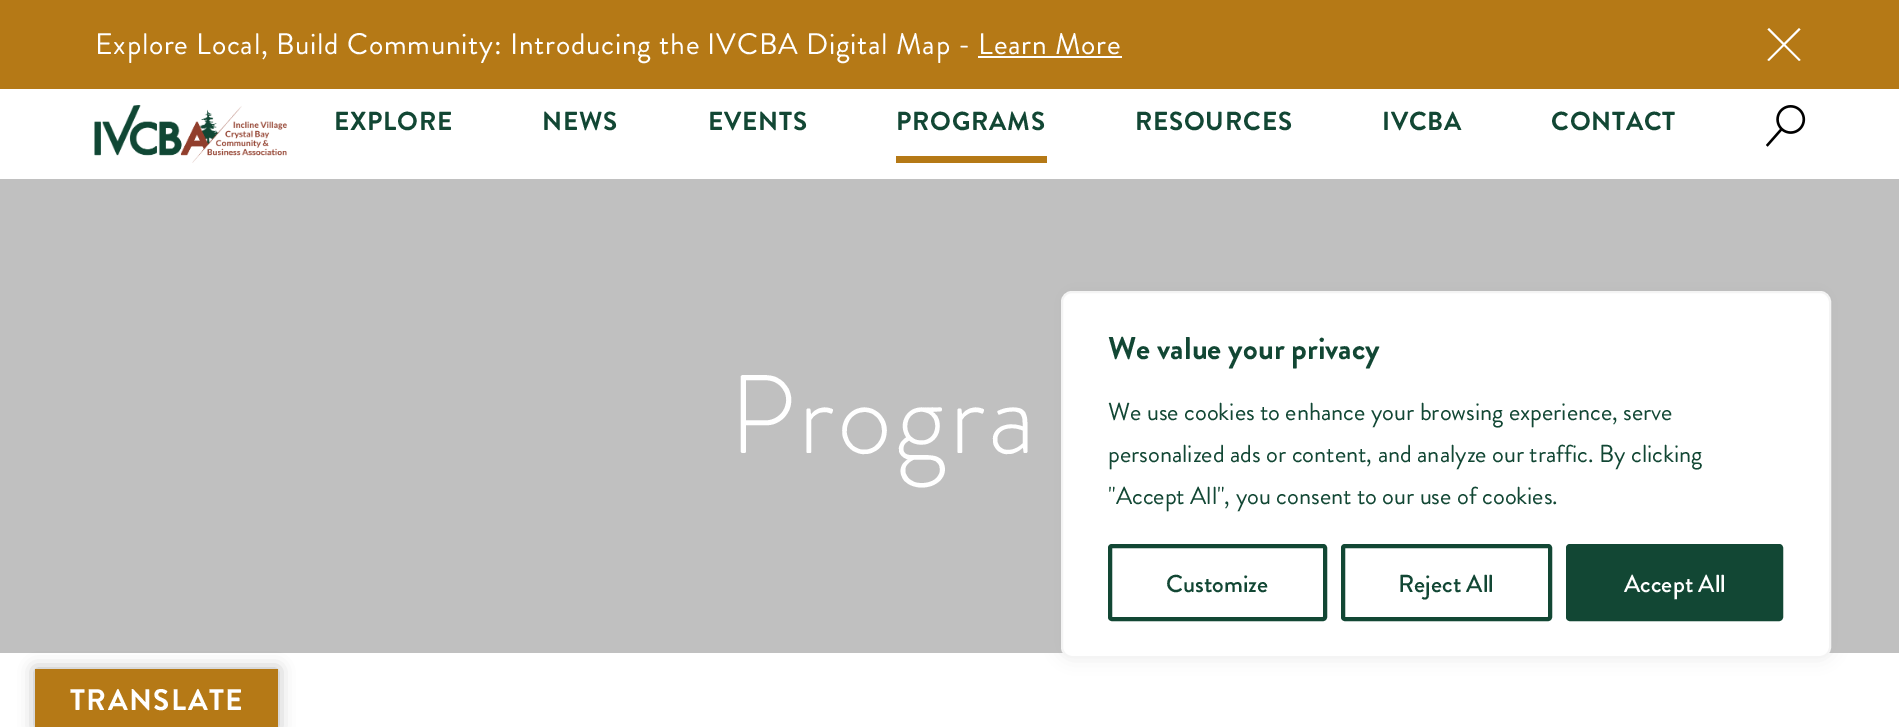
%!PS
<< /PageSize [1899 727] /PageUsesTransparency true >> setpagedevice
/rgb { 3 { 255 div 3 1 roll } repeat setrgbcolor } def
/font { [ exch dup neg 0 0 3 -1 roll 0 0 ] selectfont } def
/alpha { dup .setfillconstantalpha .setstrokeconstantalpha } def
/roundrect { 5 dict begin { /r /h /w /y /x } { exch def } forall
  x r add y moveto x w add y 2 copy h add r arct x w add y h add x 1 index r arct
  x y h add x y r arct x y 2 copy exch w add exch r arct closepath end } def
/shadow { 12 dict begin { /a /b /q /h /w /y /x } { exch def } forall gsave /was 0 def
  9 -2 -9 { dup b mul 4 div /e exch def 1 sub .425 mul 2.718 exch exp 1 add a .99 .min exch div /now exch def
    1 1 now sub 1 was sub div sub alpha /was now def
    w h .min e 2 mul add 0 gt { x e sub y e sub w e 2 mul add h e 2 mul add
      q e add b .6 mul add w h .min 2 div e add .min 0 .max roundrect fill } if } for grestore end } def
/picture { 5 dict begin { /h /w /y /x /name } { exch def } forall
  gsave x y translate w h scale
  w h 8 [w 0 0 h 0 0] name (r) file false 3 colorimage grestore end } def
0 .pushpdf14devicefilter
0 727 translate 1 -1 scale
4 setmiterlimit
255 255 255 rgb
0 0 1899 727 rectfill
181 121 22 rgb
0 0 1899 89 rectfill
255 255 255 rgb
978 56 144 2 rectfill
1799 28 moveto 1800.5 29.5 lineto 1769 61 lineto 1767.5 60 lineto closepath fill
1767.5 29.5 moveto 1769 28 lineto 1800.5 60 lineto 1799 61 lineto closepath fill
(img/1.rgb) 94 105 193 58 picture
181 121 22 rgb
896 156 151 7 rectfill
(img/2.rgb) 1766 105 40 42 picture
192 192 192 rgb
0 179 1899 474 rectfill
172 171 171 rgb
1061 289 770 367 11 9 0.3 shadow
255 255 255 rgb
1062 292 768 365 10 roundrect gsave fill grestore
244 244 244 rgb
2 setlinewidth
stroke
18 71 52 rgb
4 setlinewidth
1110 546 215 73 2 roundrect stroke
1343 546 207 73 2 roundrect stroke
1568 546 213 73 2 roundrect gsave fill grestore
stroke
0 0 0 rgb
35 669 243 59 0 8 0.3 shadow
181 121 22 rgb
35 669 243 58 rectfill
/BrandonGrotesque-Regular 29.75 font
255 255 255 rgb
95 54 moveto 0.75 0 (Explore Local, Build Community: Introducing the IVCBA Digital Map - Learn More) ashow
/BrandonGrotesque-Bold 26 font
18 71 52 rgb
334 130 moveto 0.75 0 (EXPLORE) ashow
542 130 moveto 0.75 0 (NEWS) ashow
708 130 moveto 0.75 0 (EVENTS) ashow
896 130 moveto 0.75 0 (PROGRAMS) ashow
1135 130 moveto 0.75 0 (RESOURCES) ashow
1382 130 moveto 0.75 0 (IVCBA) ashow
1551 130 moveto 0.75 0 (CONTACT) ashow
/BrandonGrotesque-Light 111.5 font
255 255 255 rgb
729 453 moveto 2.75 0 (Progra) ashow
/BrandonGrotesque-Bold 31.5 font
18 71 52 rgb
1108 359 moveto (We value your privacy) show
/BrandonGrotesque-Regular 24.5 font
[
  [(We use cookies to enhance your browsing experience, serve) 1108 420]
  [(personalized ads or content, and analyze our traffic. By clicking) 1108 462]
  [("Accept All", you consent to our use of cookies.) 1108 504]
] { aload pop moveto show } forall
/BrandonGrotesque-Medium 24.5 font
1166 592 moveto (Customize) show
1398 592 moveto (Reject All) show
255 255 255 rgb
1624 592 moveto (Accept All) show
/BrandonGrotesque-Bold 29.75 font
70 710 moveto 1.5 0 (TRANSLATE) ashow
.poppdf14devicefilter showpage
